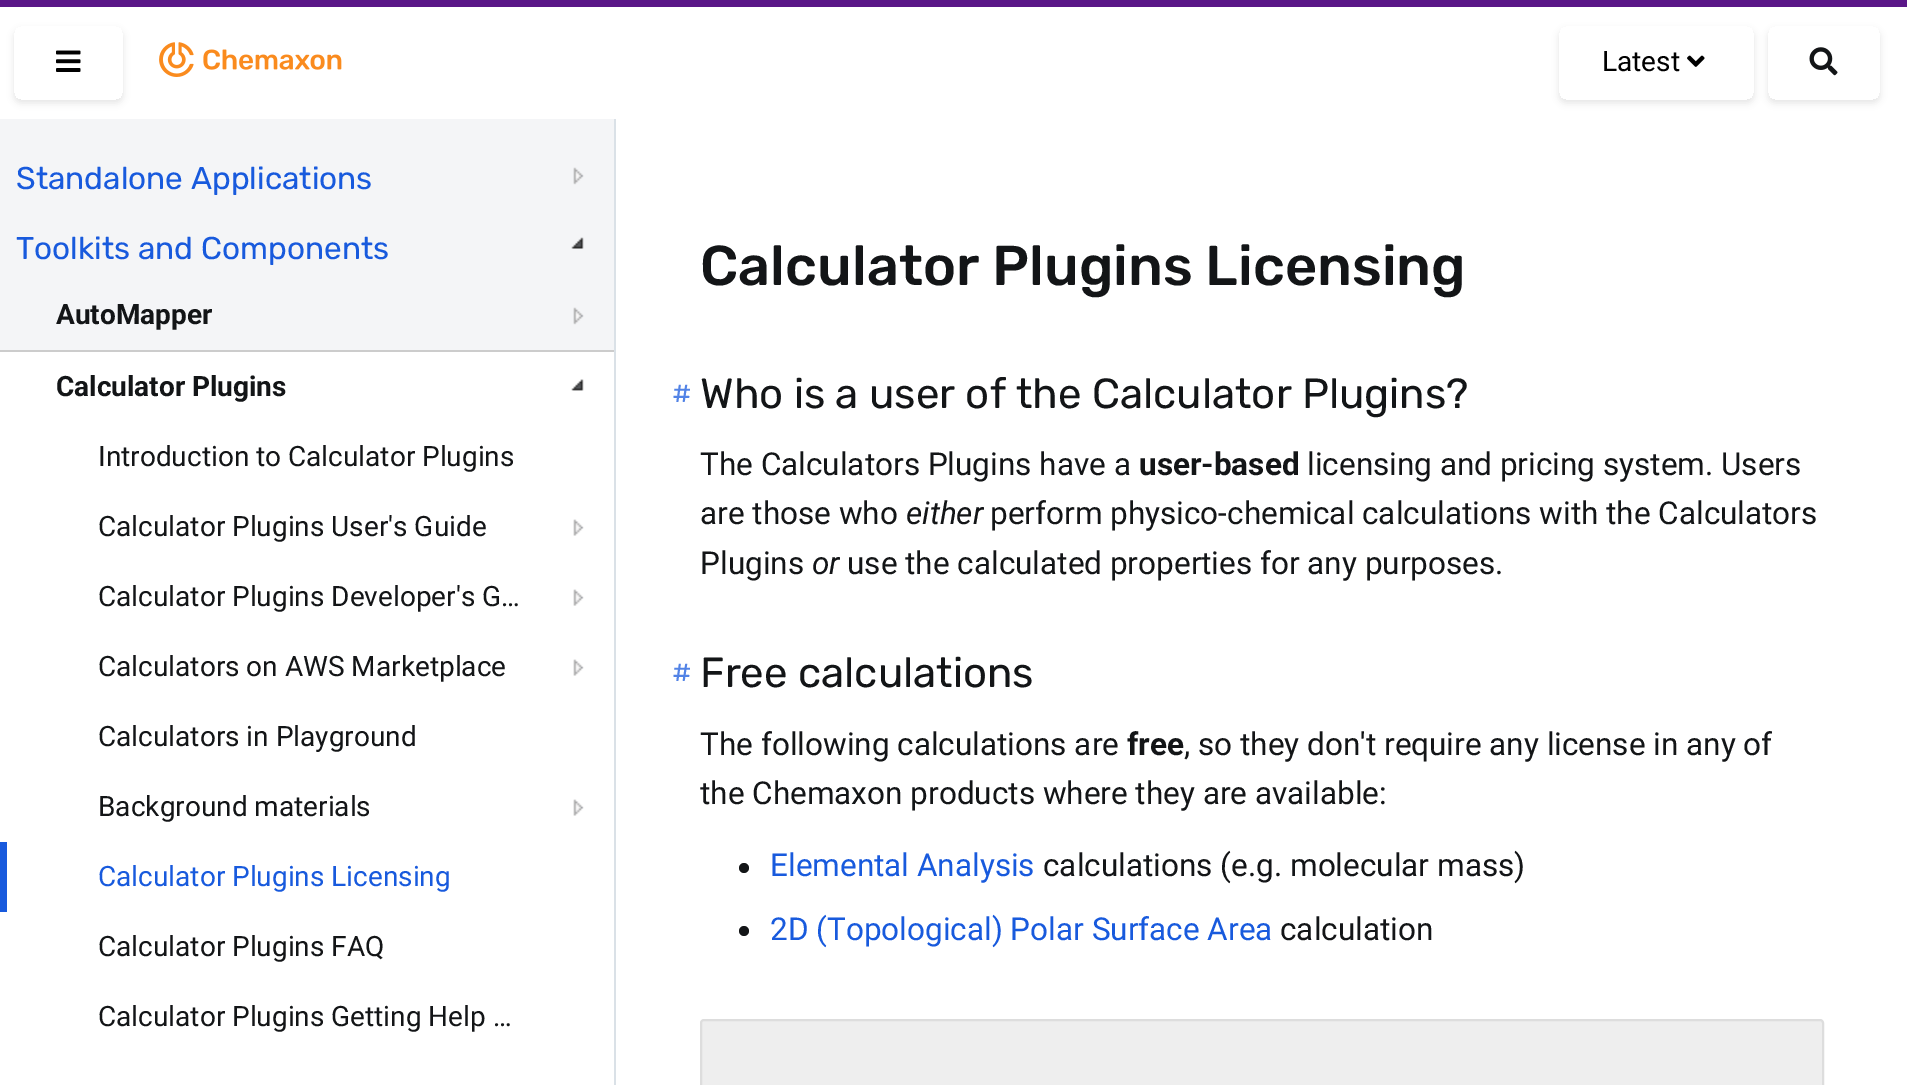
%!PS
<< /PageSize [1907 1085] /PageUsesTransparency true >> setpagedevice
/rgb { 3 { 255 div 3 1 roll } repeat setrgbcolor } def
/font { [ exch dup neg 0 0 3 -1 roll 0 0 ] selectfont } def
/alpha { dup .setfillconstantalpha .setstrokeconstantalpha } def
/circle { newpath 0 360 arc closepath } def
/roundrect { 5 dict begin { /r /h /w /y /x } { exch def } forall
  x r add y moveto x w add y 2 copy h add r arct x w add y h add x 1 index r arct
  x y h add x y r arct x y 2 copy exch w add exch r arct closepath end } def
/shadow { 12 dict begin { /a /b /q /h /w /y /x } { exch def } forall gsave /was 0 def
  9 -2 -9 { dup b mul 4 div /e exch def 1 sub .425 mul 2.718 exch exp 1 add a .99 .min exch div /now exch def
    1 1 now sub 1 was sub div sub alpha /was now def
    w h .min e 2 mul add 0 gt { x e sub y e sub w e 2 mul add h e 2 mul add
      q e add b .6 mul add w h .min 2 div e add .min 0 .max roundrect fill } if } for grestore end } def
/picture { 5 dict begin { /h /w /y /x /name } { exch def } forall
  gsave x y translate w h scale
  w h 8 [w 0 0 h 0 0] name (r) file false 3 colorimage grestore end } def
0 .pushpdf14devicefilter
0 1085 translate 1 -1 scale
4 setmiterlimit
255 255 255 rgb
0 0 1907 1085 rectfill
[
  [0 0 1907 7 90 23 136]
  [614 112 2 973 218 225 231]
  [614 112 2 7 255 255 255]
] { aload pop rgb rectfill } forall
gsave
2 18 moveto 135 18 lineto 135 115 lineto 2 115 lineto closepath 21 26 moveto 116 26 lineto 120 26 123 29 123 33 curveto 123 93 lineto 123 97 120 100 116 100 curveto 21 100 lineto 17 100 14 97 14 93 curveto 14 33 lineto 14 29 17 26 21 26 curveto closepath eoclip newpath
0 0 0 rgb
14 30 109 73 7 3.5 0.1 shadow
grestore
(img/1.rgb) 56 50 25 22 picture
(img/2.rgb) 159 42 183 35 picture
gsave
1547 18 moveto 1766 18 lineto 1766 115 lineto 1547 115 lineto closepath 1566 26 moveto 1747 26 lineto 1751 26 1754 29 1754 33 curveto 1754 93 lineto 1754 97 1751 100 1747 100 curveto 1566 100 lineto 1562 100 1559 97 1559 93 curveto 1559 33 lineto 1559 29 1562 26 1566 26 curveto closepath eoclip newpath
0 0 0 rgb
1559 30 195 73 7 3.5 0.1 shadow
grestore
(img/3.rgb) 1687 55 18 12 picture
gsave
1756 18 moveto 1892 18 lineto 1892 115 lineto 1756 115 lineto closepath 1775 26 moveto 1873 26 lineto 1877 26 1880 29 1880 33 curveto 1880 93 lineto 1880 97 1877 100 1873 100 curveto 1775 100 lineto 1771 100 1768 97 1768 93 curveto 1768 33 lineto 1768 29 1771 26 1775 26 curveto closepath eoclip newpath
0 0 0 rgb
1768 30 112 73 7 3.5 0.1 shadow
grestore
(img/4.rgb) 1809 47 29 29 picture
244 245 247 rgb
0 119 614 231 rectfill
(img/5.rgb) 573 167 11 18 picture
(img/6.rgb) 571 237 13 12 picture
(img/5.rgb) 573 307 11 18 picture
204 204 204 rgb
0 350 614 2 rectfill
(img/7.rgb) 571 379 13 12 picture
(img/8.rgb) 573 519 11 17 picture
(img/9.rgb) 573 589 11 17 picture
(img/8.rgb) 573 659 11 17 picture
(img/8.rgb) 573 799 11 17 picture
24 90 221 rgb
0 842 7 70 rectfill
19 21 23 rgb
744 868 5 circle fill
744 931 5 circle fill
238 238 238 rgb
701 1020 1122 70 3 roundrect gsave fill grestore
221 221 221 rgb
2 setlinewidth
stroke
/Roboto-Regular 28 font
0 0 0 rgb
1602 71 moveto (Latest) show
/Rubik-Regular 31.5 font
24 90 221 rgb
16 189 moveto (Standalone Applications) show
16 259 moveto (Toolkits and Components) show
/Roboto-Bold 28 font
19 21 23 rgb
56 324 moveto (AutoMapper) show
56 396 moveto (Calculator Plugins) show
/Roboto-Regular 28 font
[
  [(Introduction to Calculator Plugins) 98 466]
  [(Calculator Plugins User's Guide) 98 536]
  [(Calculator Plugins Developer's G…) 98 606]
  [(Calculators on AWS Marketplace) 98 676]
  [(Calculators in Playground) 98 746]
  [(Background materials) 98 816]
] { aload pop moveto show } forall
24 90 221 rgb
98 886 moveto (Calculator Plugins Licensing) show
19 21 23 rgb
98 956 moveto (Calculator Plugins FAQ) show
98 1026 moveto (Calculator Plugins Getting Help …) show
/Rubik-Medium 56 font
700 285 moveto (Calculator Plugins Licensing) show
/Rubik-Regular 28 font
82 131 230 rgb
672 403 moveto (#) show
/Rubik-Regular 42 font
19 21 23 rgb
700 408 moveto (Who is a user of the Calculator Plugins?) show
/Roboto-Regular 31.5 font
700 475 moveto (The Calculators Plugins have a) show
/Roboto-Bold 31.5 font
1139 475 moveto (user-based) show
/Roboto-Regular 31.5 font
1307 475 moveto (licensing and pricing system. Users) show
700 524 moveto (are those who) show
/Roboto-Italic 31.5 font
906 524 moveto (either) show
/Roboto-Regular 31.5 font
990 524 moveto (perform physico-chemical calculations with the Calculators) show
700 574 moveto (Plugins) show
/Roboto-Italic 31.5 font
812 574 moveto (or) show
/Roboto-Regular 31.5 font
847 574 moveto (use the calculated properties for any purposes.) show
/Rubik-Regular 28 font
82 131 230 rgb
672 682 moveto (#) show
/Rubik-Regular 42 font
19 21 23 rgb
700 687 moveto (Free calculations) show
/Roboto-Regular 31.5 font
700 755 moveto (The following calculations are) show
/Roboto-Bold 31.5 font
1127 755 moveto (free) show
/Roboto-Regular 31.5 font
1184 755 moveto (, so they don't require any license in any of) show
700 804 moveto (the Chemaxon products where they are available:) show
24 90 221 rgb
770 876 moveto (Elemental Analysis) show
19 21 23 rgb
1043 876 moveto (calculations \(e.g. molecular mass\)) show
24 90 221 rgb
770 940 moveto (2D \(Topological\) Polar Surface Area) show
19 21 23 rgb
1280 940 moveto (calculation) show
.poppdf14devicefilter showpage
